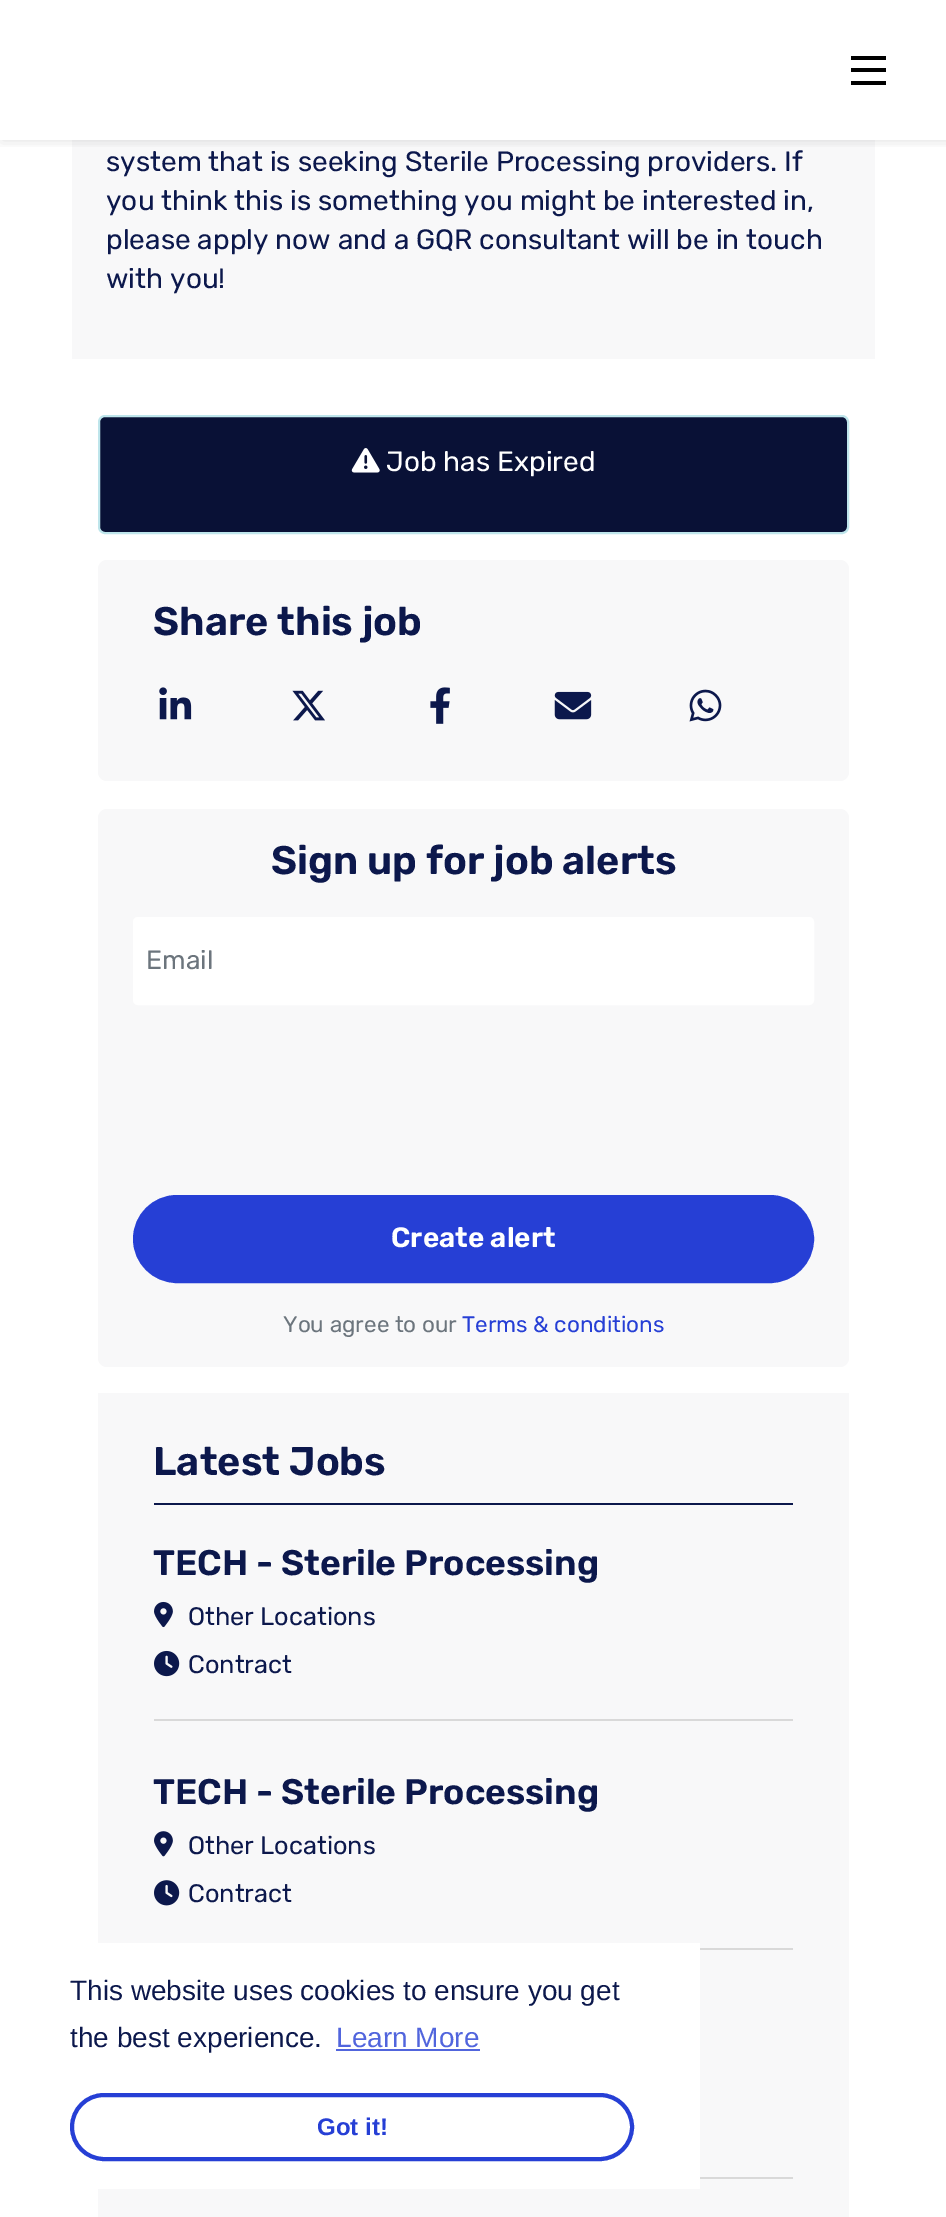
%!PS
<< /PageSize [946 2217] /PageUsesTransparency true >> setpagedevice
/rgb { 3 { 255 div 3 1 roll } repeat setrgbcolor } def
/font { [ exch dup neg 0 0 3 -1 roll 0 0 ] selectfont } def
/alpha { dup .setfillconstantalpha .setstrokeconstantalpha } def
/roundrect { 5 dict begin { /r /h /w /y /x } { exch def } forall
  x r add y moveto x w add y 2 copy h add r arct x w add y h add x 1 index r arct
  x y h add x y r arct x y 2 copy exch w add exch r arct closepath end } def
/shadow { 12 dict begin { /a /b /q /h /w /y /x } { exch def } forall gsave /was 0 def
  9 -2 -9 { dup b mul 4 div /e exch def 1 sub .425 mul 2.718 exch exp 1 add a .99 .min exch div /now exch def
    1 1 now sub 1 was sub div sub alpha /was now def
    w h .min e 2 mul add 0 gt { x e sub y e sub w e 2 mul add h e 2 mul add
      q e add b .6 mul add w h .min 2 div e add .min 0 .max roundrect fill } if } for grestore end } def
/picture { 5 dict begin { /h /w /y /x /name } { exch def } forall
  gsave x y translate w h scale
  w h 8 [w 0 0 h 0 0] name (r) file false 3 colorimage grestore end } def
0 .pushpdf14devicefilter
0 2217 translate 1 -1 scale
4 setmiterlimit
255 255 255 rgb
0 0 946 2217 rectfill
248 248 249 rgb
72 140 803 219 rectfill
gsave
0 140 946 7 rectclip
0 0 0 rgb
2 0 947 140 0 7 0.14 shadow
grestore
[
  [851 68 35 4 0 0 0]
  [851 56 35 4 0 0 0]
  [851 81 35 4 0 0 0]
] { aload pop rgb rectfill } forall
9 17 54 rgb
99 416 749 117 6 roundrect gsave fill grestore
190 229 235 rgb
2 setlinewidth
stroke
(img/1.rgb) 351 448 29 25 picture
248 248 249 rgb
98 560 751 221 9 roundrect fill
(img/2.rgb) 159 687 33 33 picture
(img/3.rgb) 292 690 33 31 picture
(img/4.rgb) 430 687 20 37 picture
(img/5.rgb) 554 691 38 29 picture
(img/6.rgb) 689 689 33 33 picture
98 809 751 558 9 roundrect fill
255 255 255 rgb
134 918 679 86 4 roundrect gsave fill grestore
stroke
38 63 213 rgb
134 1196 679 86 43 roundrect gsave fill grestore
stroke
[
  [98 1393 751 824 248 248 249]
  [154 1503 639 2 12 24 76]
  [154 1719 639 2 217 217 217]
] { aload pop rgb rectfill } forall
(img/7.rgb) 154 1601 19 27 picture
(img/8.rgb) 154 1650 26 27 picture
700 1948 93 2 rectfill
(img/9.rgb) 154 1831 19 26 picture
(img/10.rgb) 154 1880 26 26 picture
[
  [700 2177 93 2 217 217 217]
  [98 1943 602 246 255 255 255]
  [336 2049 144 2 81 101 221]
] { aload pop rgb rectfill } forall
38 63 213 rgb
4 setlinewidth
72 2095 560 64 32 roundrect stroke
/Rubik-Regular 28 font
12 24 76 rgb
[
  [(system that is seeking Sterile Processing providers. If) 106 171]
  [(you think this is something you might be interested in,) 106 210]
  [(please apply now and a GQR consultant will be in touch) 106 249]
  [(with you!) 106 288]
] { aload pop moveto show } forall
255 255 255 rgb
386 471 moveto (Job has Expired) show
/Rubik-SemiBold 39.9 font
12 24 76 rgb
153 635 moveto (Share this job) show
271 874 moveto (Sign up for job alerts) show
/Rubik-Regular 26.5 font
108 117 125 rgb
146 969 moveto (Email) show
/Rubik-SemiBold 28 font
255 255 255 rgb
391 1247 moveto (Create alert) show
/Rubik-Regular 22.5 font
108 117 125 rgb
283 1332 moveto (You agree to our) show
38 63 213 rgb
462 1332 moveto (Terms & conditions) show
/Rubik-SemiBold 39.9 font
12 24 76 rgb
153 1475 moveto (Latest Jobs) show
/Rubik-SemiBold 35.5 font
153 1575 moveto (TECH - Sterile Processing) show
/Rubik-Regular 25.25 font
188 1625 moveto (Other Locations) show
188 1673 moveto (Contract) show
/Rubik-SemiBold 35.5 font
153 1804 moveto (TECH - Sterile Processing) show
/Rubik-Regular 25.25 font
188 1854 moveto (Other Locations) show
188 1902 moveto (Contract) show
/LiberationSans-Regular 28 font
70 2000 moveto (This website uses cookies to ensure you get) show
70 2047 moveto (the best experience.) show
81 101 221 rgb
336 2047 moveto (Learn More) show
/LiberationSans-Bold 24 font
38 63 213 rgb
317 2135 moveto (Got it!) show
.poppdf14devicefilter showpage
